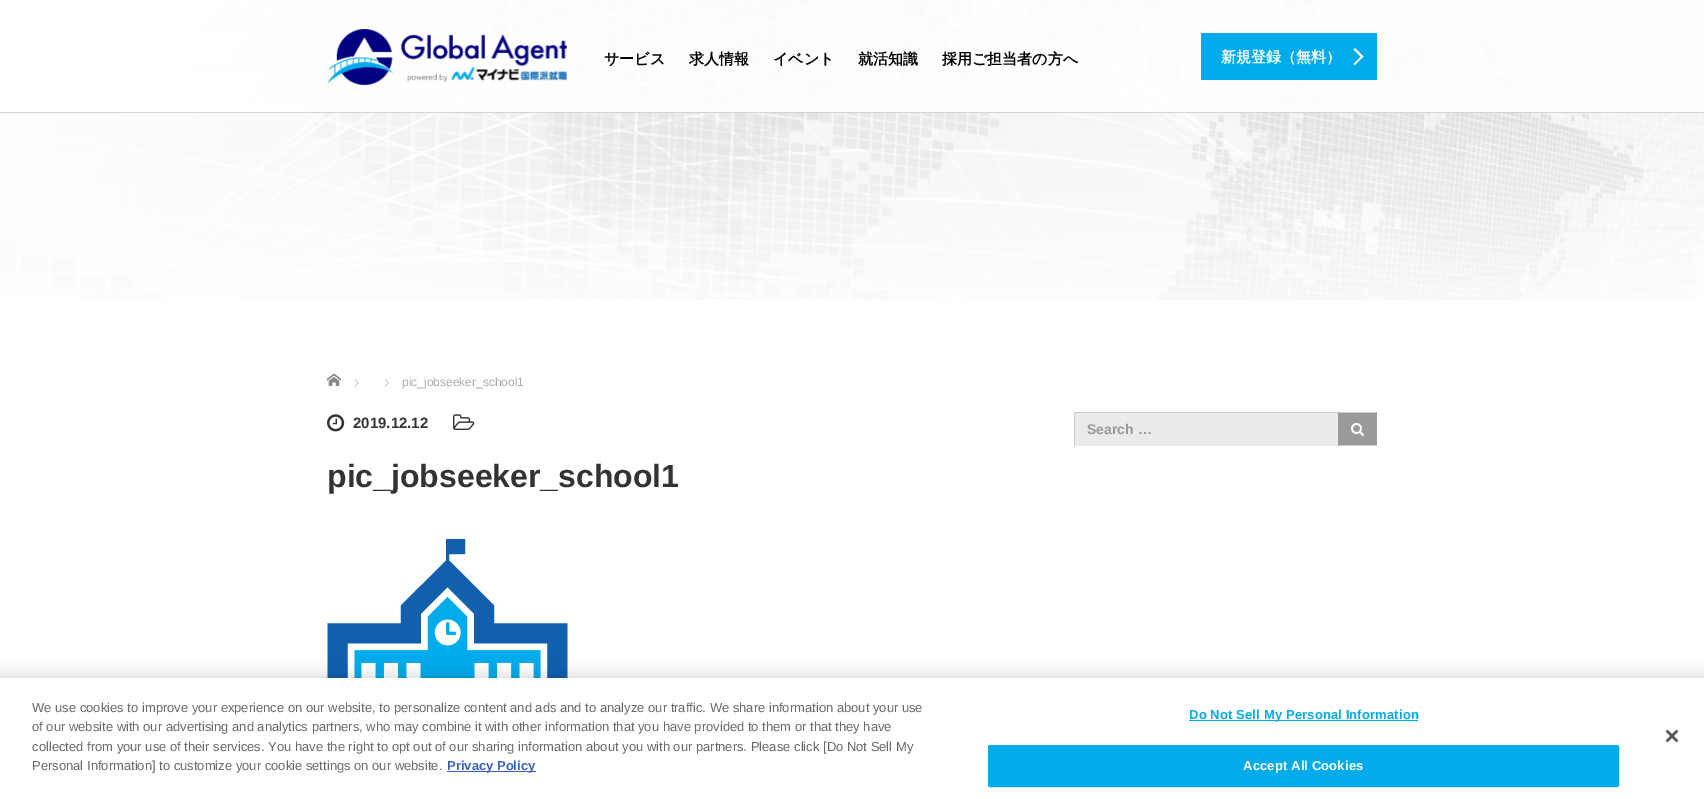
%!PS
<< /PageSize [1704 799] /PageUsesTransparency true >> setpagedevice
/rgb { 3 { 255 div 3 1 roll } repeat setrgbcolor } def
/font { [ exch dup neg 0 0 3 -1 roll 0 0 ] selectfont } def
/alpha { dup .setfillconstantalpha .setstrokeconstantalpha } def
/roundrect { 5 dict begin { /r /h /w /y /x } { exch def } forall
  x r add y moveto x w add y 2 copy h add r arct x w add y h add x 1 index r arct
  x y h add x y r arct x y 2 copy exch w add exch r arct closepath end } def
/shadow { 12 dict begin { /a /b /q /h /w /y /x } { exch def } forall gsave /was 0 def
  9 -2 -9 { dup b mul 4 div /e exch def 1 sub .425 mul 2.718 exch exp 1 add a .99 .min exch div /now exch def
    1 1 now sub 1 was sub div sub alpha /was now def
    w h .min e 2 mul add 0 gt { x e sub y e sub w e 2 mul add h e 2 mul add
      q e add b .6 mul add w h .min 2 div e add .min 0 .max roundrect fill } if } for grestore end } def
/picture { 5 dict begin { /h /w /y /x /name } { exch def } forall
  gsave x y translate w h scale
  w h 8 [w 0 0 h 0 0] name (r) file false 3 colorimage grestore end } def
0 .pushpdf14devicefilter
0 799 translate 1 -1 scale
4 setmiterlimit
255 255 255 rgb
0 0 1704 799 rectfill
(img/1.rgb) 0 0 1704 300 picture
0.9 alpha
0 0 1704 112 rectfill
1 alpha
211 211 211 rgb
0 112 1704 1 rectfill
(img/2.rgb) 327 29 240 56 picture
0 171 235 rgb
1201 33 176 47 rectfill
255 255 255 rgb
1355 48 moveto 1363.5 56.5 lineto 1362 58 lineto 1353.5 49.5 lineto closepath fill
1362 55.5 moveto 1363.5 56.5 lineto 1355 65 lineto 1353.5 64 lineto closepath fill
(img/3.rgb) 327 373 14 13 picture
(img/4.rgb) 354 379 5 8 picture
(img/4.rgb) 384 379 5 8 picture
(img/5.rgb) 327 414 18 18 picture
(img/6.rgb) 453 414 22 16 picture
(img/7.rgb) 327 539 241 139 picture
234 234 234 rgb
1074 413 264 33 rectfill
204 204 204 rgb
1074 412 265 1 rectfill
1074 446 moveto 1074 412 lineto 1075 413 lineto 1075 445 lineto closepath fill
154 154 154 rgb
1338 412 39 34 rectfill
204 204 204 rgb
1338 412 moveto 1377 412 lineto 1376 413 lineto 1339 413 lineto closepath 1377 446 moveto 1338 446 lineto 1339 445 lineto 1376 445 lineto closepath fill
(img/8.rgb) 1351 423 13 13 picture
0 0 0 rgb
0 678 1704 121 0 9 0.2 shadow
[
  [0 678 1704 121 255 255 255]
  [447 771 89 1 56 96 190]
  [1189 720 229 1 0 170 235]
] { aload pop rgb rectfill } forall
988.5 745.5 630 41 1.5 roundrect gsave fill grestore
stroke
(img/9.rgb) 1666 730 12 12 picture
/WenQuanYiZenHei-Bold 15 font
0 0 0 rgb
[
  [(サービス) 604 64]
  [(求人情報) 689 64]
  [(イベント) 773 64]
  [(就活知識) 858 64]
  [(採用ご担当者の方へ) 942 64]
] { aload pop moveto show } forall
255 255 255 rgb
1221 62 moveto (新規登録（無料）) show
/LiberationSans-Regular 12 font
170 170 170 rgb
402 386 moveto (pic_jobseeker_school1) show
/LiberationSans-Bold 15 font
51 51 51 rgb
353 428 moveto (2019.12.12) show
/LiberationSans-Bold 32 font
327 487 moveto (pic_jobseeker_school1) show
/LiberationSans-Bold 14 font
153 153 153 rgb
1087 434 moveto (Search …) show
/LiberationSans-Regular 13 font
105 105 105 rgb
[
  [(We use cookies to improve your experience on our website, to personalize content and ads and to analyze our traffic. We share information about your use) 32 712]
  [(of our website with our advertising and analytics partners, who may combine it with other information that you have provided to them or that they have) 32 731]
  [(collected from your use of their services. You have the right to opt out of our sharing information about you with our partners. Please click [Do Not Sell My) 32 751]
  [(Personal Information] to customize your cookie settings on our website.) 32 770]
] { aload pop moveto show } forall
/LiberationSans-Bold 13 font
56 96 190 rgb
447 770 moveto (Privacy Policy) show
0 170 235 rgb
1189 719 moveto 0.15 0 (Do Not Sell My Personal Information) ashow
255 255 255 rgb
1243 770 moveto 0.15 0 (Accept All Cookies) ashow
.poppdf14devicefilter showpage
